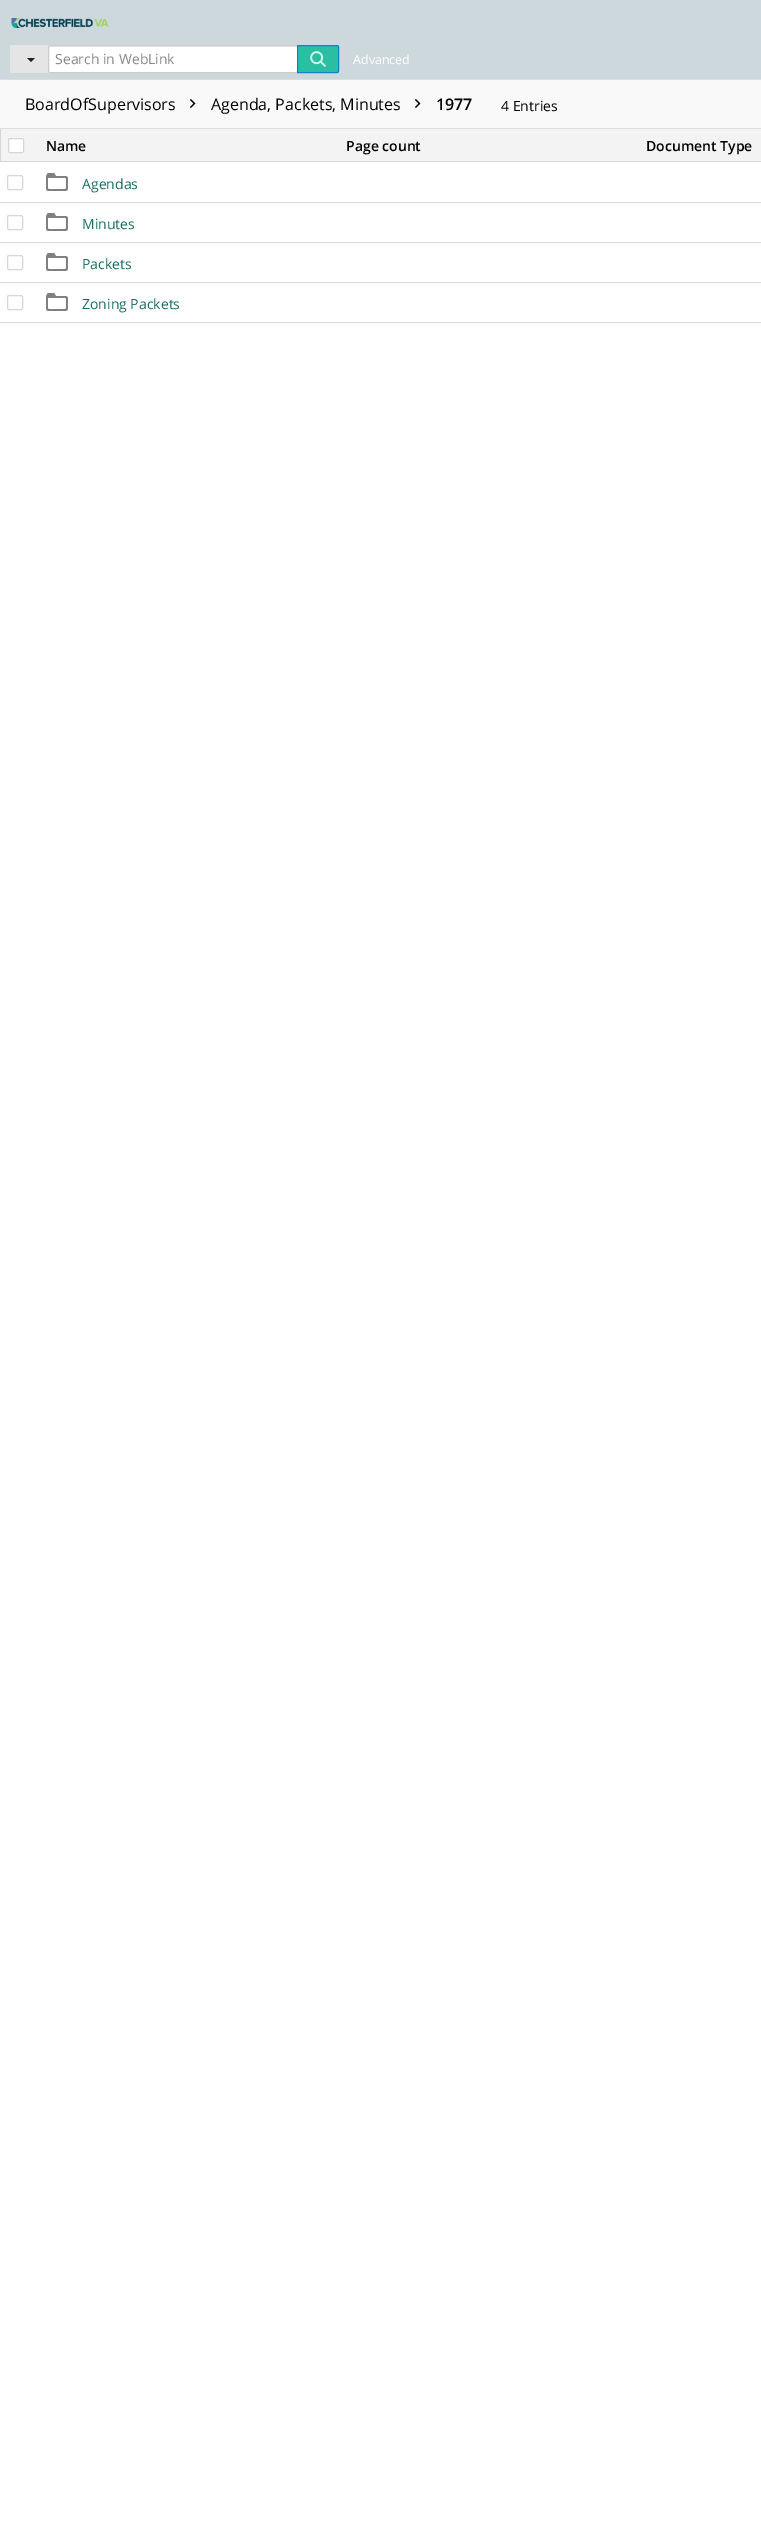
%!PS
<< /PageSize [761 2530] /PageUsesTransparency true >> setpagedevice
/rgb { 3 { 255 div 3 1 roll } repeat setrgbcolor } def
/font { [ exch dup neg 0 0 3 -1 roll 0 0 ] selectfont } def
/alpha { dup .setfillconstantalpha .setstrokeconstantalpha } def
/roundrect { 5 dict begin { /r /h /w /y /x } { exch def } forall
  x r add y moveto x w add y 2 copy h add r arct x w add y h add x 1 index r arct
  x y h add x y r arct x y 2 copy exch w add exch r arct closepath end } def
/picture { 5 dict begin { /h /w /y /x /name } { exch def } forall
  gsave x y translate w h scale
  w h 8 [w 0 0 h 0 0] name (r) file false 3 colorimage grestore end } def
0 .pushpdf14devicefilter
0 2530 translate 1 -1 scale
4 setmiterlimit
255 255 255 rgb
0 0 761 2530 rectfill
204 216 220 rgb
0 0 761 79 rectfill
221 221 221 rgb
0 79 761 1 rectfill
(img/1.rgb) 11 18 98 10 picture
229 229 229 rgb
10 45 38 28 rectfill
32 32 32 rgb
27 58 moveto 35 58 lineto 31 62 lineto closepath fill
255 255 255 rgb
48 45 250 28 2 roundrect fill
236 236 236 rgb
50 47 moveto 296 47 lineto 297 49 lineto 297 47 lineto 297 46 297 46 296 46 curveto 50 46 lineto 49 46 49 46 49 47 curveto 49 48 lineto closepath fill
204 204 204 rgb
48.5 45.5 249 27 1.5 roundrect stroke
0.8 alpha
2 183 147 rgb
297 45 moveto 337 45 lineto 338 45 339 46 339 47 curveto 339 71 lineto 339 72 338 73 337 73 curveto 297 73 lineto closepath fill
2 117 216 rgb
297.5 45.5 moveto 337 45.5 lineto 338 45.5 338.5 46 338.5 47 curveto 338.5 71 lineto 338.5 72 338 72.5 337 72.5 curveto 297.5 72.5 lineto closepath stroke
1 alpha
(img/2.rgb) 310 51 16 16 picture
249 249 249 rgb
0 80 761 48 rectfill
221 221 221 rgb
0 128 761 1 rectfill
(img/3.rgb) 190 99 6 9 picture
(img/3.rgb) 415 99 6 9 picture
[
  [35 161 726 1 214 214 214]
  [0 129 1 33 214 214 214]
  [0 161 36 1 214 214 214]
  [1 129 760 32 243 243 243]
] { aload pop rgb rectfill } forall
255 255 255 rgb
8.5 138.5 15 14 1.5 roundrect gsave fill grestore
214 214 214 rgb
stroke
217 217 217 rgb
0 202 761 1 rectfill
214 214 214 rgb
7.5 175.5 15 14 1.5 roundrect stroke
(img/4.rgb) 46 173 22 18 picture
217 217 217 rgb
0 242 761 1 rectfill
214 214 214 rgb
7.5 215.5 15 14 1.5 roundrect stroke
(img/4.rgb) 46 213 22 18 picture
217 217 217 rgb
0 282 761 1 rectfill
214 214 214 rgb
7.5 255.5 15 14 1.5 roundrect stroke
(img/4.rgb) 46 253 22 18 picture
217 217 217 rgb
0 322 761 1 rectfill
214 214 214 rgb
7.5 295.5 15 14 1.5 roundrect stroke
(img/4.rgb) 46 293 22 18 picture
/OpenSans-Regular 14 font
137 137 137 rgb
55 64 moveto (Search in WebLink) show
/OpenSans-Regular 12.5 font
255 255 255 rgb
353 64 moveto (Advanced) show
/OpenSans-Regular 16 font
0 0 0 rgb
25 110 moveto (BoardOfSupervisors) show
211 110 moveto (Agenda, Packets, Minutes) show
/OpenSans-SemiBold 16 font
436 110 moveto (1977) show
/OpenSans-Regular 14 font
501 111 moveto (4 Entries) show
/OpenSans-SemiBold 14 font
[
  [(Name) 46 151]
  [(Page count) 346 151]
  [(Document Type) 646 151]
] { aload pop moveto show } forall
/OpenSans-Regular 14 font
25 110 100 rgb
[
  [(Agendas) 82 189]
  [(Minutes) 82 229]
  [(Packets) 82 269]
  [(Zoning Packets) 82 309]
] { aload pop moveto show } forall
.poppdf14devicefilter showpage
